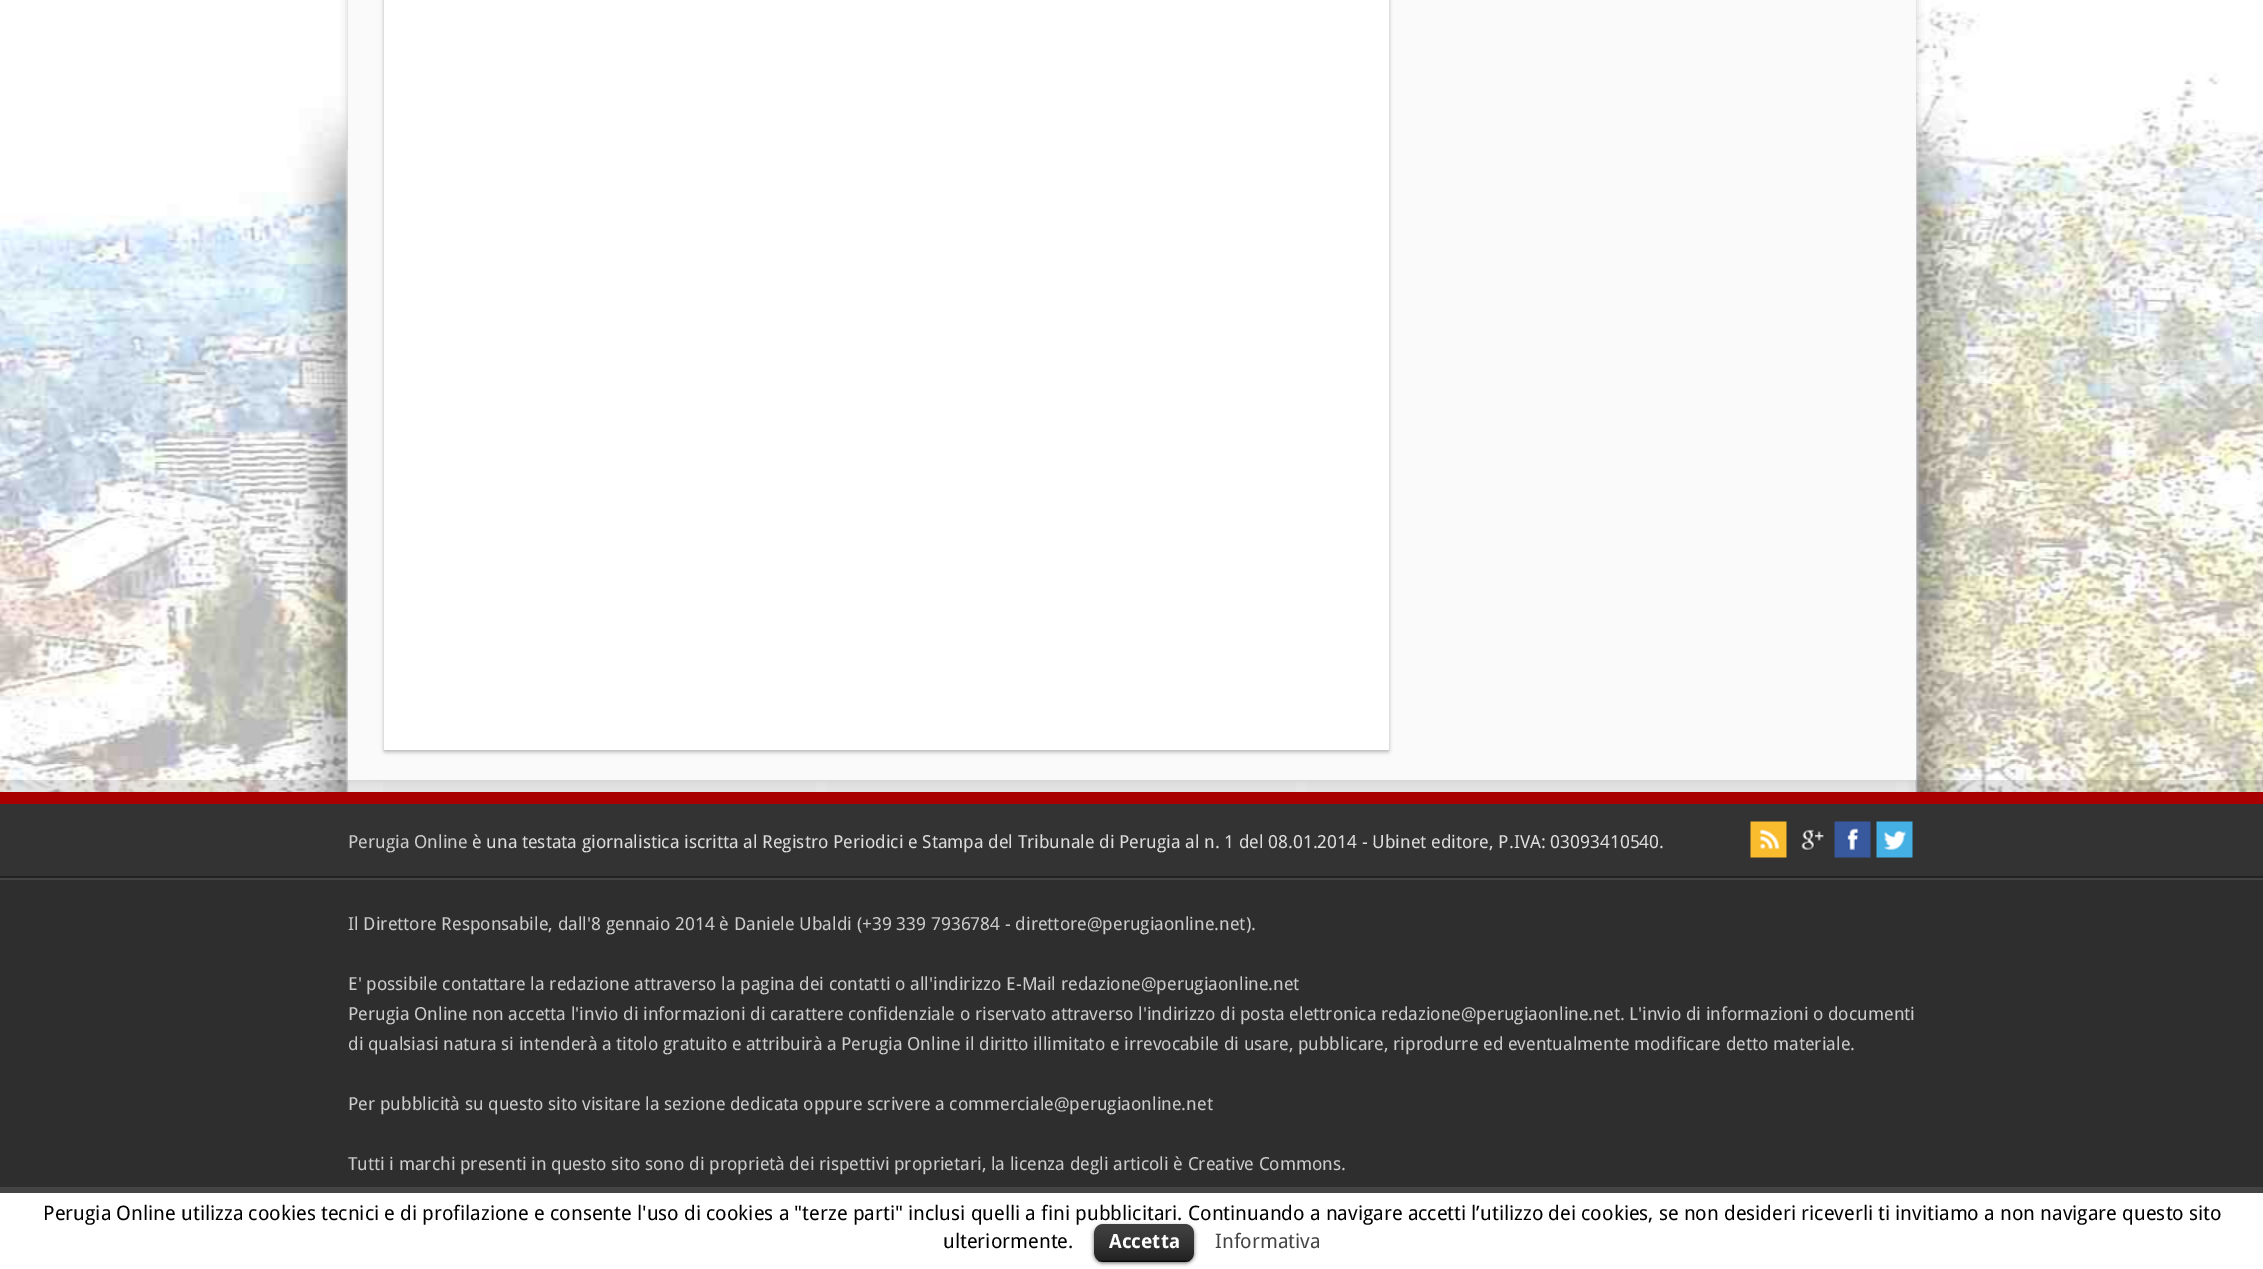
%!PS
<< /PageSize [2263 1269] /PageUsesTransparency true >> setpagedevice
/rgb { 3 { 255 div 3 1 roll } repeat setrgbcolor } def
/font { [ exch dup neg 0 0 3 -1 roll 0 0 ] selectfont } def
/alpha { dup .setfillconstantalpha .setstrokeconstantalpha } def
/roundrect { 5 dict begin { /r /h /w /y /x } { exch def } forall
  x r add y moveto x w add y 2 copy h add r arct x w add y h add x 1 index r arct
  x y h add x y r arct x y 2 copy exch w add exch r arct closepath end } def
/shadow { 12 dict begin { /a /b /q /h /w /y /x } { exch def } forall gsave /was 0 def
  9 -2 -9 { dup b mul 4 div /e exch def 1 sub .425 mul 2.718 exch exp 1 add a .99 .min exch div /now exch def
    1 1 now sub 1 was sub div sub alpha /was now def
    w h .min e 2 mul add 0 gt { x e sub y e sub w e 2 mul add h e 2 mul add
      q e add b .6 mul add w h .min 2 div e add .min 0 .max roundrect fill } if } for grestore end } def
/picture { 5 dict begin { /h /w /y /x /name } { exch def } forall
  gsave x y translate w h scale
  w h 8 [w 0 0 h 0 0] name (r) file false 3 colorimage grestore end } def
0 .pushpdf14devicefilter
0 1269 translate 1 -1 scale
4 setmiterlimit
255 255 255 rgb
0 0 2263 1269 rectfill
(img/1.rgb) 0 0 2263 792 picture
0.1 alpha
0 0 0 rgb
0 780 moveto 0 792 lineto 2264 792 lineto 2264 866 lineto 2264 780 lineto closepath fill
1 alpha
168 0 0 rgb
0 792 2263 12 rectfill
202 202 202 rgb
348 -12 1568 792 0 4 1 shadow
250 250 250 rgb
348 0 1568 780 rectfill
181 181 181 rgb
384 -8 1005 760 1.5 2 1 shadow
255 255 255 rgb
384 -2 1005 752 1.5 roundrect fill
51 51 51 rgb
0 804 2263 72 rectfill
34 34 34 rgb
0 876 2263 2 rectfill
(img/2.rgb) 1750 821 37 37 picture
(img/3.rgb) 1800 829 25 22 picture
(img/4.rgb) 1834 821 37 37 picture
(img/5.rgb) 1876 821 37 37 picture
[
  [0 880 2263 307 46 46 46]
  [0 878 2263 2 68 68 68]
  [0 1187 2263 6 68 68 68]
] { aload pop rgb rectfill } forall
0 0 0 rgb
1094 1226 100 37 9 2 0.6 shadow
1094 1224 100 38 9 roundrect fill
/DroidSans-Regular 18 font
204 204 204 rgb
348 848 moveto (Perugia Online) show
221 221 221 rgb
472 848 moveto (è una testata giornalistica iscritta al Registro Periodici e Stampa del Tribunale di Perugia al n. 1 del 08.01.2014 - Ubinet editore, P.IVA: 03093410540.) show
204 204 204 rgb
[
  [(Il Direttore Responsabile, dall'8 gennaio 2014 è Daniele Ubaldi \(+39 339 7936784 - direttore@perugiaonline.net\).) 348 930]
  [(E' possibile contattare la redazione attraverso la pagina dei contatti o all'indirizzo E-Mail redazione@perugiaonline.net) 348 990]
  [(Perugia Online non accetta l'invio di informazioni di carattere confidenziale o riservato attraverso l'indirizzo di posta elettronica redazione@perugiaonline.net. L'invio di informazioni o documenti) 348 1020]
  [(di qualsiasi natura si intenderà a titolo gratuito e attribuirà a Perugia Online il diritto illimitato e irrevocabile di usare, pubblicare, riprodurre ed eventualmente modificare detto materiale.) 348 1050]
  [(Per pubblicità su questo sito visitare la sezione dedicata oppure scrivere a commerciale@perugiaonline.net) 348 1110]
  [(Tutti i marchi presenti in questo sito sono di proprietà dei rispettivi proprietari, la licenza degli articoli è Creative Commons.) 348 1170]
] { aload pop moveto show } forall
/DroidSans-Regular 20 font
0 0 0 rgb
43 1220 moveto (Perugia Online utilizza cookies tecnici e di profilazione e consente l'uso di cookies a "terze parti" inclusi quelli a fini pubblicitari. Continuando a navigare accetti l’utilizzo dei cookies, se non desideri riceverli ti invitiamo a non navigare questo sito) show
943 1248 moveto (ulteriormente.) show
(img/6.rgb) 1094 1224 100 38 picture
0.25 alpha
1098 1260 92 2 rectfill
/DroidSans-Bold 19.5 font
1 alpha
255 255 255 rgb
1109 1248 moveto (Accetta) show
/DroidSans-Regular 20 font
68 68 68 rgb
1215 1248 moveto (Informativa) show
.poppdf14devicefilter showpage
